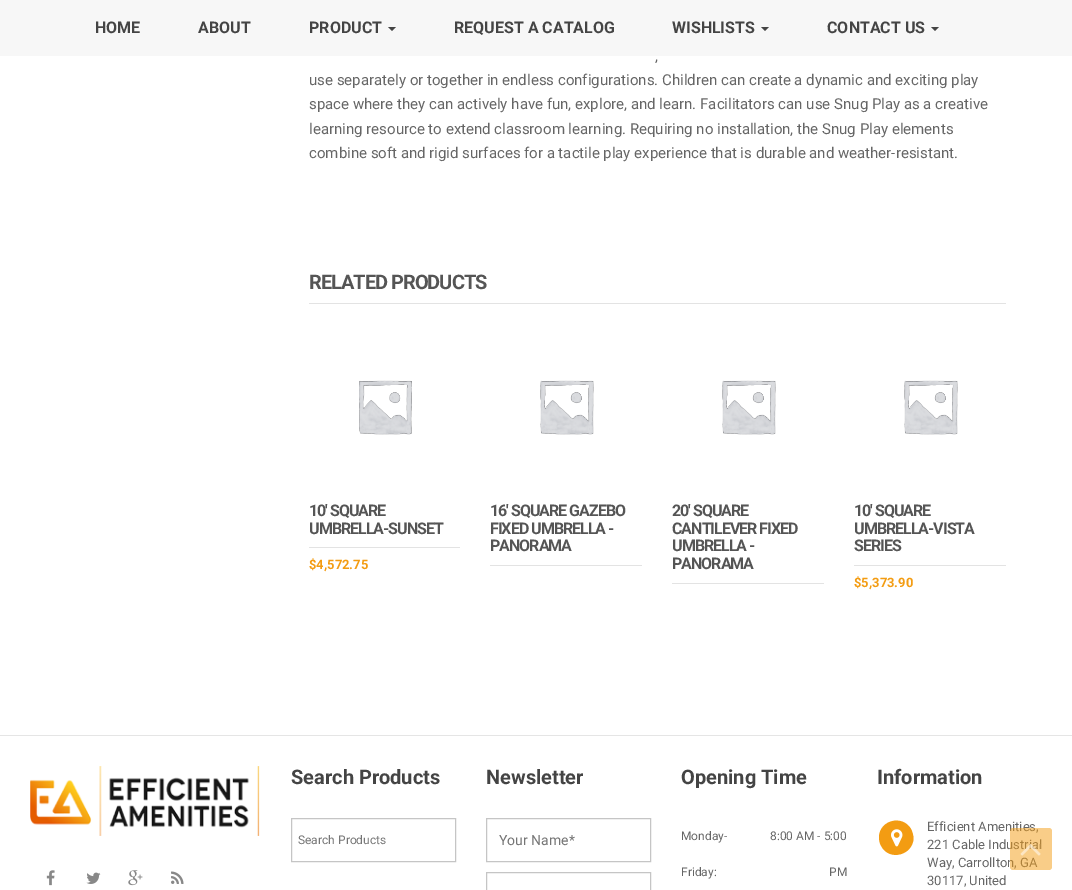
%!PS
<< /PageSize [1072 890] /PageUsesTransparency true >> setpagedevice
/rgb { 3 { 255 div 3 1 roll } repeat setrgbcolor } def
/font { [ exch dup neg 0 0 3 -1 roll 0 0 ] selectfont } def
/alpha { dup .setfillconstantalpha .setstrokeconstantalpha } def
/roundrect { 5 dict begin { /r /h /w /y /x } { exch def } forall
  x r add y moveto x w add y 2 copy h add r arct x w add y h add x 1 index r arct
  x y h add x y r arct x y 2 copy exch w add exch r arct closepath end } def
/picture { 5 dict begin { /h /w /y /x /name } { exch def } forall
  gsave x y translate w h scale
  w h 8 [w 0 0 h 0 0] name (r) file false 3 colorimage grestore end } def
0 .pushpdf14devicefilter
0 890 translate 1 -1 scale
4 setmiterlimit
255 255 255 rgb
0 0 1072 890 rectfill
247 247 247 rgb
0 0 1072 56 rectfill
68 68 68 rgb
388 27 moveto 396 27 lineto 392 31 lineto closepath fill
761 27 moveto 769 27 lineto 765 31 lineto closepath fill
931 27 moveto 939 27 lineto 935 31 lineto closepath fill
227 227 227 rgb
309 303 697 1 rectfill
(img/1.rgb) 359 380 53 55 picture
309 547 151 1 rectfill
(img/2.rgb) 540 380 54 55 picture
490 565 152 1 rectfill
(img/3.rgb) 722 380 54 55 picture
672 583 152 1 rectfill
(img/2.rgb) 904 380 54 55 picture
854 565 152 1 rectfill
229 229 229 rgb
0 735 1072 1 rectfill
(img/4.rgb) 30 766 230 70 picture
(img/5.rgb) 46 870 9 16 picture
(img/6.rgb) 86 872 15 12 picture
(img/7.rgb) 128 870 15 16 picture
(img/8.rgb) 171 871 13 13 picture
197 197 197 rgb
291.5 818.5 164 43 rectstroke
486.5 818.5 164 43 rectstroke
486.5 872.5 164 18 rectstroke
243 156 18 rgb
911 829 moveto 912.5 832 913.5 835.5 913.5 839 curveto 912 855.5 889.5 861 881.5 846.5 curveto 879.5 843.5 879 840 879 836.5 curveto 880 820 902.5 814.5 911 829 curveto closepath fill
(img/9.rgb) 891 829 12 18 picture
/Roboto-Bold 16 font
68 68 68 rgb
[
  [(HOME) 95 33]
  [(ABOUT) 198 33]
  [(PRODUCT) 309 33]
  [(REQUEST A CATALOG) 454 33]
  [(WISHLISTS) 672 33]
  [(CONTACT US) 827 33]
] { aload pop moveto show } forall
/Roboto-Regular 15 font
102 102 102 rgb
[
  [(,) 655 61]
  [(use separately or together in endless configurations. Children can create a dynamic and exciting play) 309 85]
  [(space where they can actively have fun, explore, and learn. Facilitators can use Snug Play as a creative) 309 109]
  [(learning resource to extend classroom learning. Requiring no installation, the Snug Play elements) 309 134]
  [(combine soft and rigid surfaces for a tactile play experience that is durable and weather-resistant.) 309 158]
] { aload pop moveto show } forall
/Roboto-Bold 20 font
85 85 85 rgb
309 289 moveto -1 0 (RELATED PRODUCTS) ashow
/Roboto-Bold 16 font
309 516 moveto -1 0 (10′ SQUARE) ashow
309 534 moveto -1 0 (UMBRELLA-SUNSET) ashow
/Roboto-Bold 13 font
243 156 18 rgb
309 569 moveto ($4,572.75) show
/Roboto-Bold 16 font
85 85 85 rgb
490 516 moveto -1 0 (16′ SQUARE GAZEBO) ashow
490 534 moveto -1 0 (FIXED UMBRELLA -) ashow
490 551 moveto -1 0 (PANORAMA) ashow
672 516 moveto -1 0 (20′ SQUARE) ashow
672 534 moveto -1 0 (CANTILEVER FIXED) ashow
672 551 moveto -1 0 (UMBRELLA -) ashow
672 569 moveto -1 0 (PANORAMA) ashow
854 516 moveto -1 0 (10′ SQUARE) ashow
854 534 moveto -1 0 (UMBRELLA-VISTA) ashow
854 551 moveto -1 0 (SERIES) ashow
/Roboto-Bold 13 font
243 156 18 rgb
854 587 moveto ($5,373.90) show
/Roboto-Bold 20 font
68 68 68 rgb
291 784 moveto (Search Products) show
/Roboto-Regular 12 font
117 117 117 rgb
298 844 moveto (Search Products) show
/Roboto-Bold 20 font
68 68 68 rgb
486 784 moveto (Newsletter) show
/Roboto-Regular 14 font
117 117 117 rgb
499 845 moveto (Your Name*) show
/Roboto-Bold 20 font
68 68 68 rgb
681 784 moveto (Opening Time) show
/Roboto-Regular 12 font
102 102 102 rgb
[
  [(Monday-) 681 840]
  [(Friday:) 681 876]
  [(8:00 AM - 5:00) 770 840]
  [(PM) 829 876]
] { aload pop moveto show } forall
/Roboto-Bold 20 font
68 68 68 rgb
877 784 moveto (Information) show
/Roboto-Regular 13 font
102 102 102 rgb
[
  [(Efficient Amenities,) 927 831]
  [(221 Cable Industrial) 927 849]
  [(Way, Carrollton, GA) 927 867]
  [(30117, United) 927 885]
] { aload pop moveto show } forall
0.5 alpha
243 156 18 rgb
1010 828 42 42 3 roundrect fill
1 alpha
(img/10.rgb) 1020 844 21 12 picture
.poppdf14devicefilter showpage
